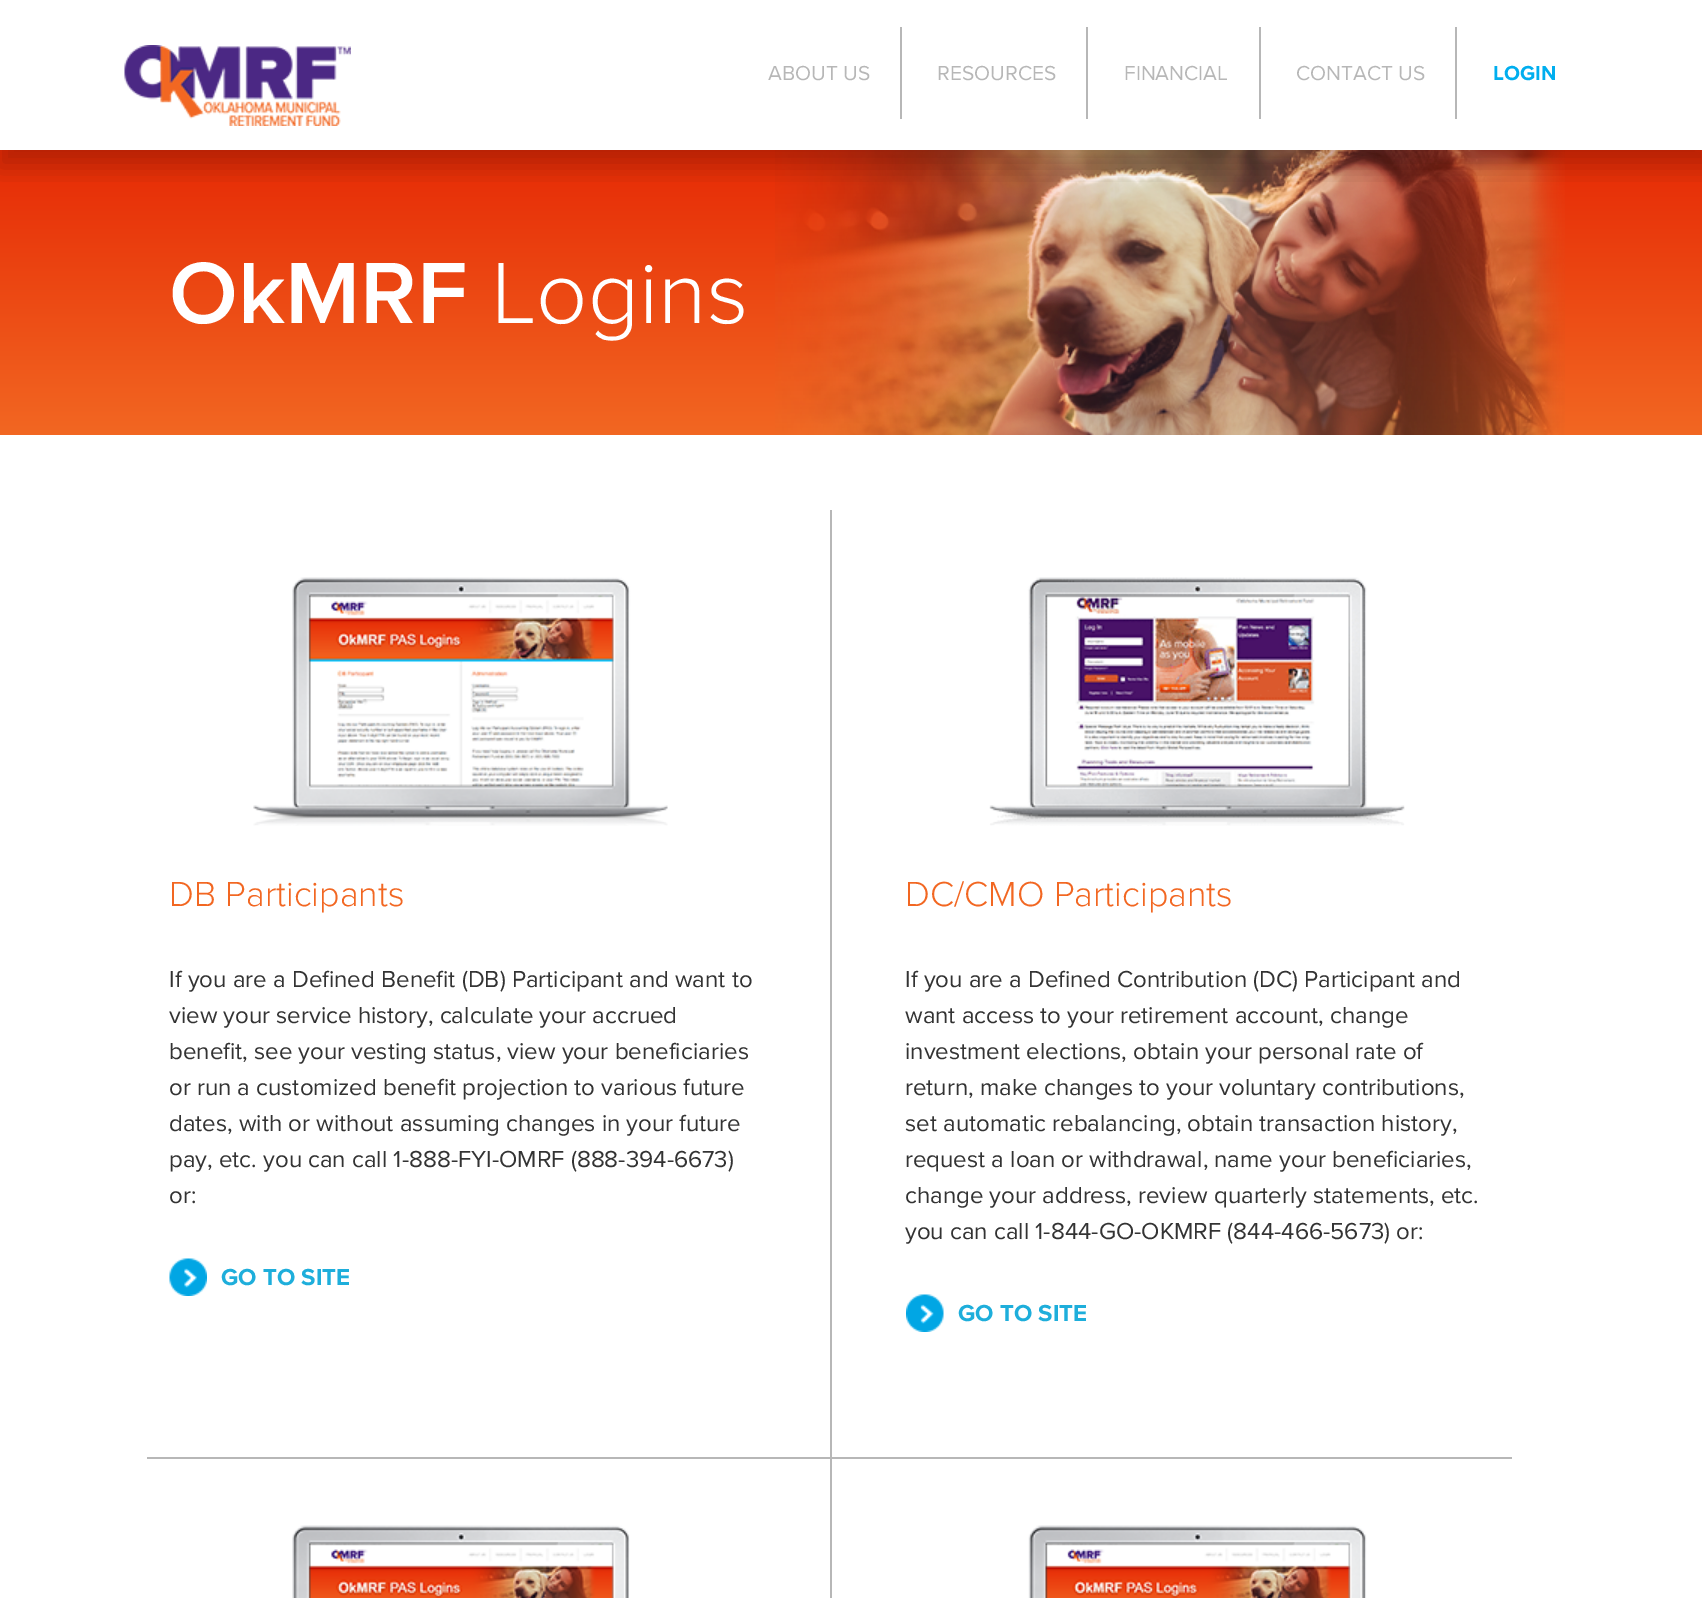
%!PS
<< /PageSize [1702 1598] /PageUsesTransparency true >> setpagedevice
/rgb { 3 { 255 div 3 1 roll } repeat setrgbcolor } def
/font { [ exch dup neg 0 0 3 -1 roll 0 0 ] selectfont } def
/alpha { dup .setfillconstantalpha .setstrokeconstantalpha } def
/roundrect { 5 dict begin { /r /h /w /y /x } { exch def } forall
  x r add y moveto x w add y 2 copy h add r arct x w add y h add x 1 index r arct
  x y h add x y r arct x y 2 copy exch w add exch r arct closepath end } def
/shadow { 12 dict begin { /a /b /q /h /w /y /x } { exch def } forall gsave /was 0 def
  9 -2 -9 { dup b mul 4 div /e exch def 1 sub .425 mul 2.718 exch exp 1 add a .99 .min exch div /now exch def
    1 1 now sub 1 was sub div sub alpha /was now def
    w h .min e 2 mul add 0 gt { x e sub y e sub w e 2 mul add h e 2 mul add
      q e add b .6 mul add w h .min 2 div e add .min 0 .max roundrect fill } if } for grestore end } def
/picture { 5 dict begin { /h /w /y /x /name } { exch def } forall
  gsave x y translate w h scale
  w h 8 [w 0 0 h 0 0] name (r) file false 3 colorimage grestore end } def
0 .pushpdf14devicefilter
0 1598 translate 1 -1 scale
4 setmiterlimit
255 255 255 rgb
0 0 1702 1598 rectfill
gsave 0 150 moveto 1702 150 lineto 1702 435 lineto 0 435 lineto closepath clip newpath
<< /ShadingType 2 /ColorSpace /DeviceRGB /Coords [851 150 851 435] /Extend [true true] /Function << /FunctionType 2 /Domain [0 1] /C0 [0.902 0.165 0.02] /C1 [0.949 0.404 0.133] /N 1 >> >> shfill grestore
(img/2.rgb) 775 150 790 285 picture
gsave
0 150 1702 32 rectclip
0 0 0 rgb
-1 8 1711 159 0 12 0.2 shadow
grestore
(img/1.rgb) 124 45 227 81 picture
[
  [900 27 2 92 183 183 183]
  [1086 27 2 92 183 183 183]
  [1259 27 2 92 183 183 183]
  [1455 27 2 92 183 183 183]
  [147 1457 1365 2 183 183 183]
] { aload pop rgb rectfill } forall
(img/3.rgb) 253 577 415 249 picture
(img/4.rgb) 169 1258 38 38 picture
830 510 2 947 rectfill
(img/5.rgb) 989 577 416 249 picture
(img/6.rgb) 906 1294 38 38 picture
(img/7.rgb) 292 1525 338 73 picture
830 1458 2 140 rectfill
(img/8.rgb) 1028 1525 339 73 picture
/ProximaNova-Regular 21 font
[
  [(ABOUT US) 768 80]
  [(RESOURCES) 937 80]
  [(FINANCIAL) 1124 80]
  [(CONTACT US) 1296 80]
] { aload pop moveto show } forall
/ProximaNova-Bold 21 font
0 174 239 rgb
1493 80 moveto (LOGIN) show
/ProximaNova-SemiBold 90 font
255 255 255 rgb
169 323 moveto (OkMRF) show
/ProximaNova-Light 90 font
491 323 moveto (Logins) show
/ProximaNova-Light 36 font
242 103 34 rgb
169 906 moveto (DB Participants) show
/ProximaNova-Regular 24 font
51 51 51 rgb
[
  [(If you are a Defined Benefit \(DB\) Participant and want to) 169 987]
  [(view your service history, calculate your accrued) 169 1023]
  [(benefit, see your vesting status, view your beneficiaries) 169 1059]
  [(or run a customized benefit projection to various future) 169 1095]
  [(dates, with or without assuming changes in your future) 169 1131]
  [(pay, etc. you can call 1-888-FYI-OMRF \(888-394-6673\)) 169 1167]
  [(or:) 169 1203]
] { aload pop moveto show } forall
/ProximaNova-Bold 24 font
30 174 219 rgb
221 1285 moveto (GO TO SITE) show
/ProximaNova-Light 36 font
242 103 34 rgb
905 906 moveto (DC/CMO Participants) show
/ProximaNova-Regular 24 font
51 51 51 rgb
[
  [(If you are a Defined Contribution \(DC\) Participant and) 905 987]
  [(want access to your retirement account, change) 905 1023]
  [(investment elections, obtain your personal rate of) 905 1059]
  [(return, make changes to your voluntary contributions,) 905 1095]
  [(set automatic rebalancing, obtain transaction history,) 905 1131]
  [(request a loan or withdrawal, name your beneficiaries,) 905 1167]
  [(change your address, review quarterly statements, etc.) 905 1203]
  [(you can call 1-844-GO-OKMRF \(844-466-5673\) or:) 905 1239]
] { aload pop moveto show } forall
/ProximaNova-Bold 24 font
30 174 219 rgb
958 1321 moveto (GO TO SITE) show
.poppdf14devicefilter showpage
